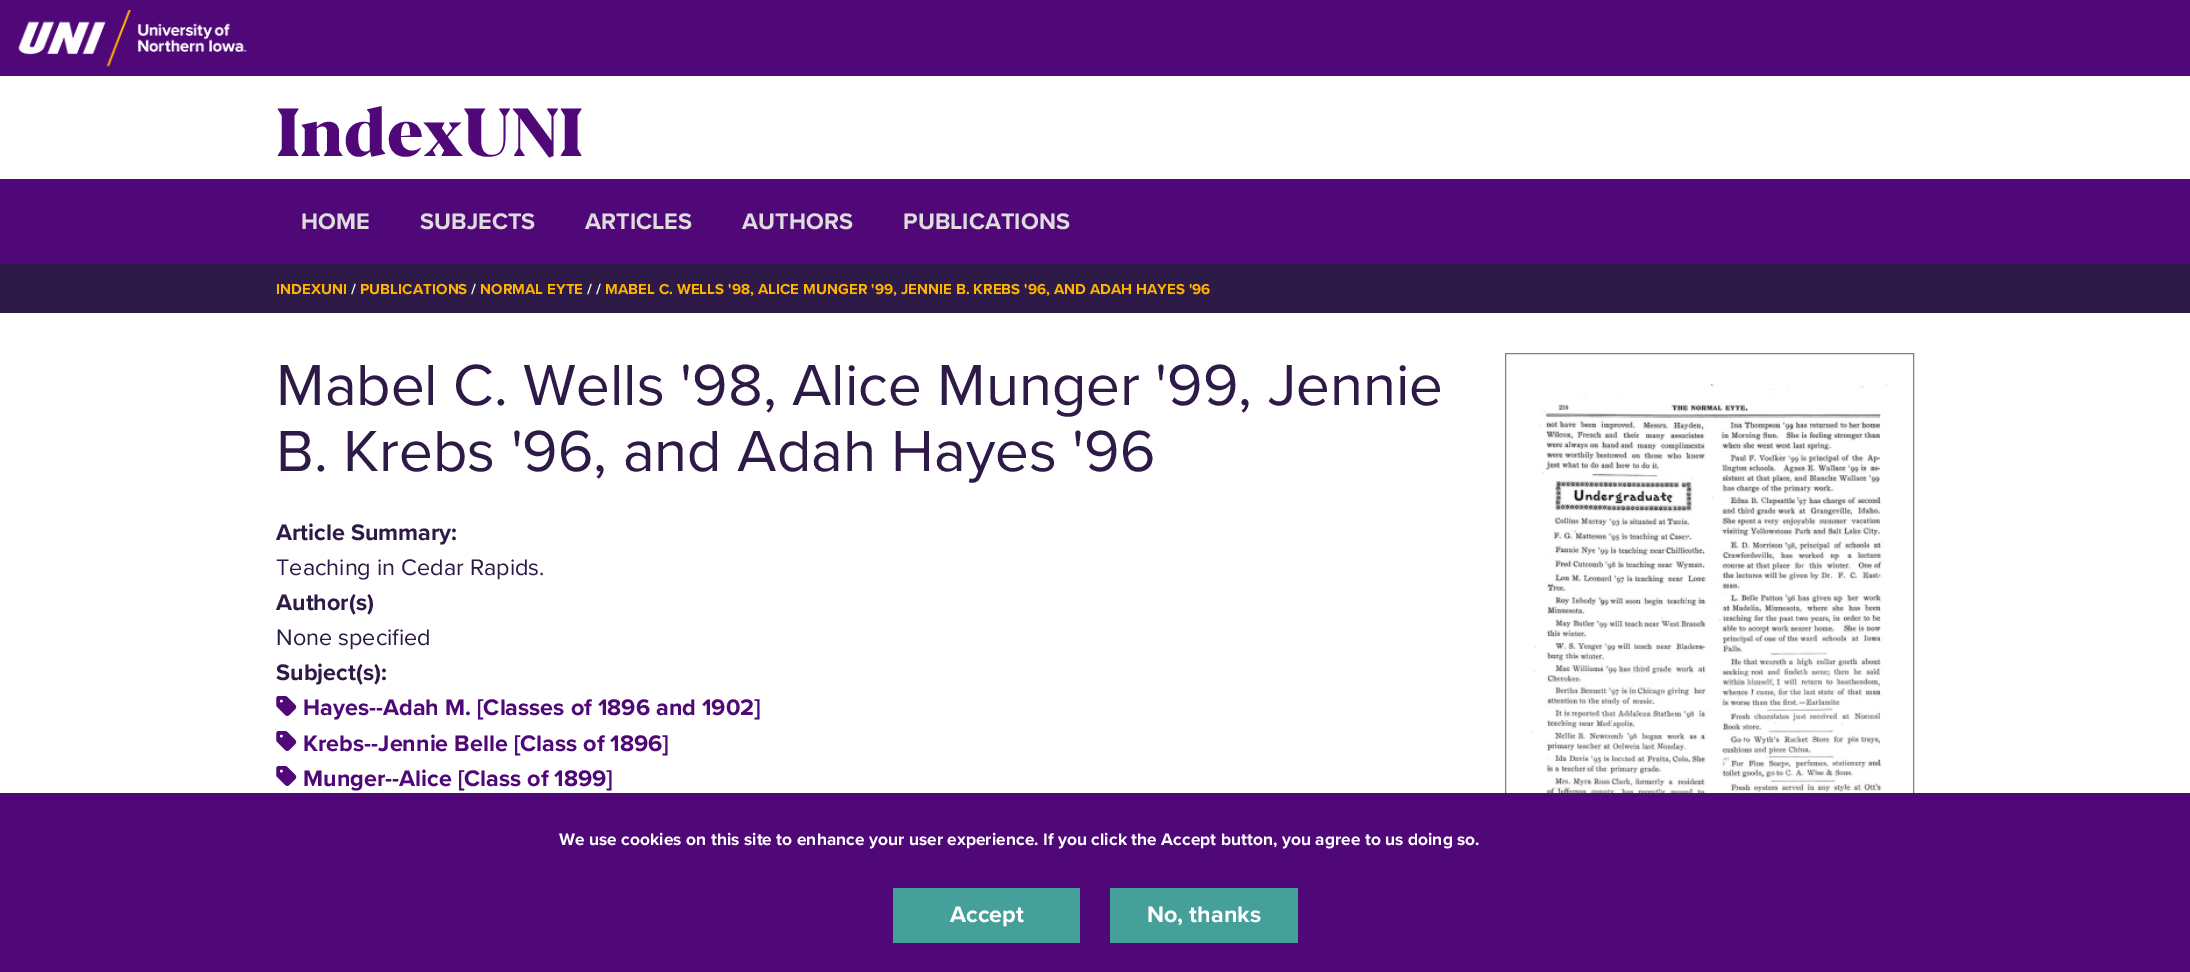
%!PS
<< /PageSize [2190 972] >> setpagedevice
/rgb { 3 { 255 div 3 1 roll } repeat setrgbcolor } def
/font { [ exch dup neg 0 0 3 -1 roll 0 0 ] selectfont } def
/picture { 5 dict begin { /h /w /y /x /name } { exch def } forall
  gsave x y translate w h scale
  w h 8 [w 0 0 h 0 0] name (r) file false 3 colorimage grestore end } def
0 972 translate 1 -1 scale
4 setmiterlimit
255 255 255 rgb
0 0 2190 972 rectfill
80 7 120 rgb
0 0 2190 76 rectfill
(img/1.rgb) 18 10 229 57 picture
0 179 2190 85 rectfill
46 26 71 rgb
0 264 2190 49 rectfill
128 128 128 rgb
1505.5 353.5 408 596 rectstroke
(img/2.rgb) 1530 381 357 412 picture
(img/3.rgb) 276 696 21 20 picture
(img/3.rgb) 276 731 21 20 picture
(img/3.rgb) 276 766 21 20 picture
[
  [0 793 2190 179 80 7 120]
  [893 888 187 55 70 160 154]
  [1110 888 188 55 70 160 154]
] { aload pop rgb rectfill } forall
/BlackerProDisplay-Black 67.5 font
80 7 120 rgb
276 156 moveto (IndexUNI) show
/ProximaNova-Bold 23.4 font
221 221 221 rgb
[
  [(HOME) 301 229]
  [(SUBJECTS) 420 229]
  [(ARTICLES) 585 229]
  [(AUTHORS) 742 229]
  [(PUBLICATIONS) 903 229]
] { aload pop moveto show } forall
/ProximaNova-Bold 15 font
255 181 0 rgb
276 294 moveto 0.05 0 (INDEXUNI) ashow
255 255 255 rgb
351 294 moveto 0.05 0 (/) ashow
255 181 0 rgb
360 294 moveto 0.05 0 (PUBLICATIONS) ashow
255 255 255 rgb
471 294 moveto 0.05 0 (/) ashow
255 181 0 rgb
480 294 moveto 0.05 0 (NORMAL EYTE) ashow
255 255 255 rgb
587 294 moveto 0.05 0 (/ /) ashow
255 181 0 rgb
605 294 moveto 0.05 0 (MABEL C. WELLS '98, ALICE MUNGER '99, JENNIE B. KREBS '96, AND ADAH HAYES '96) ashow
/ProximaNova-Regular 60 font
46 26 71 rgb
276 405 moveto (Mabel C. Wells '98, Alice Munger '99, Jennie) show
276 471 moveto (B. Krebs '96, and Adah Hayes '96) show
/ProximaNova-Bold 23.4 font
276 540 moveto (Article Summary:) show
/ProximaNova-Regular 23.4 font
276 575 moveto (Teaching in Cedar Rapids.) show
/ProximaNova-Bold 23.4 font
276 610 moveto (Author\(s\)) show
/ProximaNova-Regular 23.4 font
276 645 moveto (None specified) show
/ProximaNova-Bold 23.4 font
276 680 moveto (Subject\(s\):) show
80 7 120 rgb
[
  [(Hayes--Adah M. [Classes of 1896 and 1902]) 303 715]
  [(Krebs--Jennie Belle [Class of 1896]) 303 751]
  [(Munger--Alice [Class of 1899]) 303 786]
] { aload pop moveto show } forall
/ProximaNova-Bold 17.4 font
255 255 255 rgb
559 845 moveto (We use cookies on this site to enhance your user experience. If you click the Accept button, you agree to us doing so.) show
/ProximaNova-Bold 23.4 font
950 922 moveto (Accept) show
1147 922 moveto (No, thanks) show
showpage
